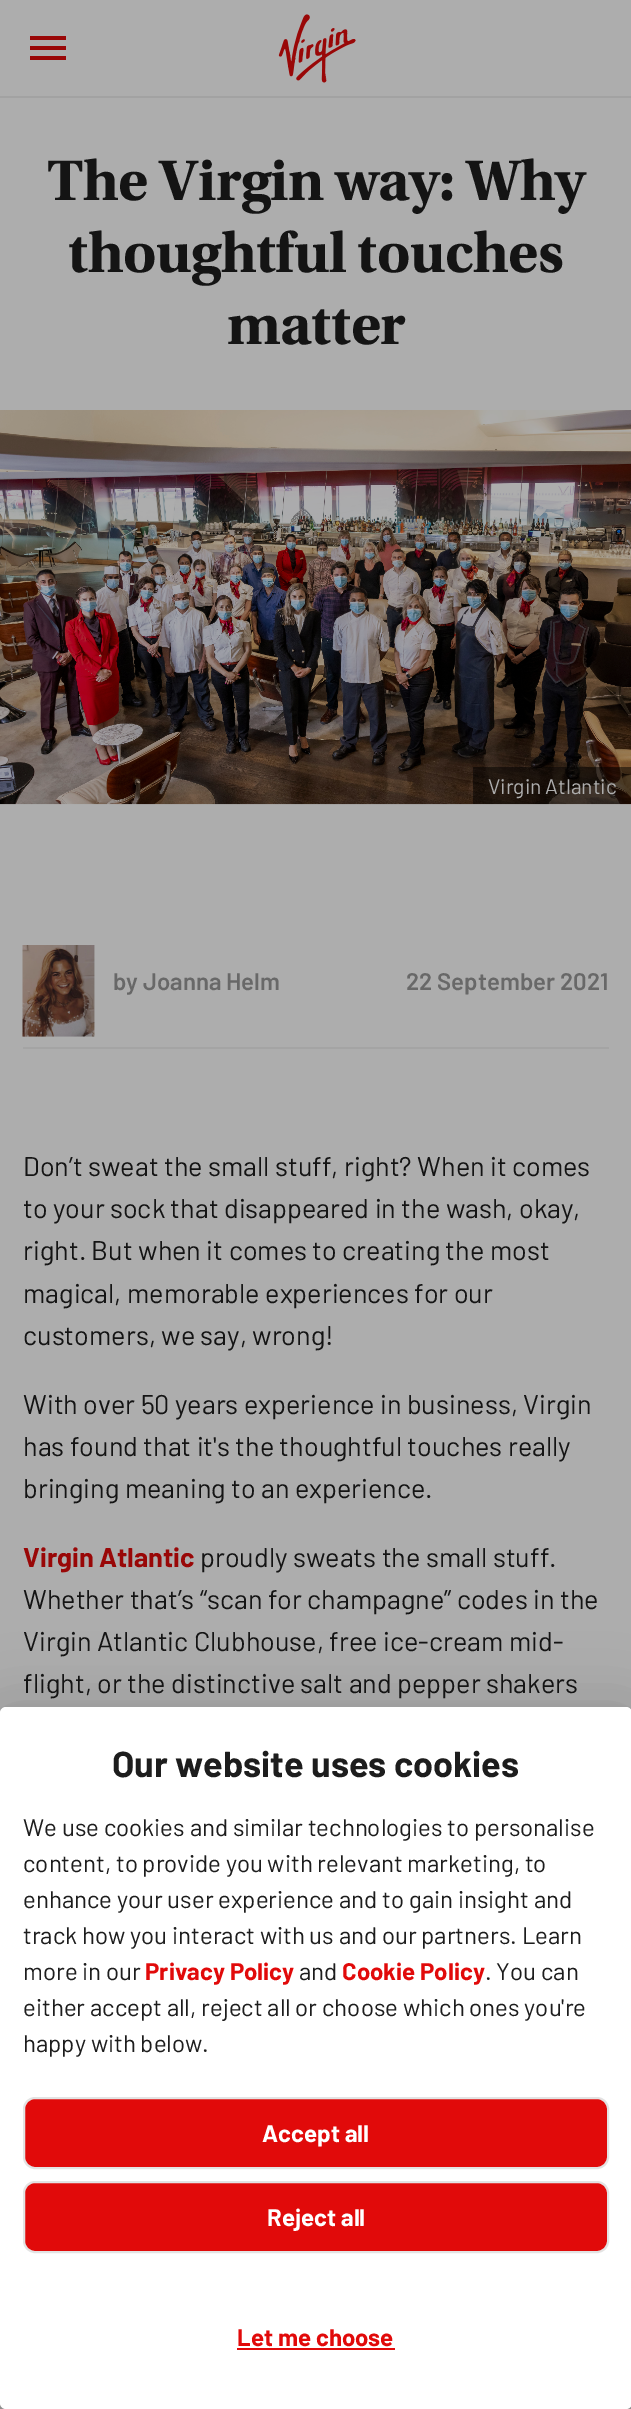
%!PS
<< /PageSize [631 2409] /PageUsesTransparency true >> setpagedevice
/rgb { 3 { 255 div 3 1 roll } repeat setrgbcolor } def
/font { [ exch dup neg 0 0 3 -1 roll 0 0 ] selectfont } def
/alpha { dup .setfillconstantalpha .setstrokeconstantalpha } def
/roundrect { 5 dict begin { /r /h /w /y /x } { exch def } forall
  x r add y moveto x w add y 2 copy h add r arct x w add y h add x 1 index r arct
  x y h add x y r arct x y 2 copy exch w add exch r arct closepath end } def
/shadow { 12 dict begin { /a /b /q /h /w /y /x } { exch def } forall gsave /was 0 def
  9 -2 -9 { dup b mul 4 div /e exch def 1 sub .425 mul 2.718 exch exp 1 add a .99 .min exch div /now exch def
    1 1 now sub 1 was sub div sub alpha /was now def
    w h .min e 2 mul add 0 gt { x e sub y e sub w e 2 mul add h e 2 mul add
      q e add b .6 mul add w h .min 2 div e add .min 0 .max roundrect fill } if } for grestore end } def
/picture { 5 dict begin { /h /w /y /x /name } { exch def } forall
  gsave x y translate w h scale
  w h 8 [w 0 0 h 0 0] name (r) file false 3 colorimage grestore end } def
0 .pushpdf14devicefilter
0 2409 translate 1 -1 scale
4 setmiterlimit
173 173 173 rgb
0 0 631 2409 rectfill
162 162 162 rgb
0 96 631 2 rectfill
153 7 7 rgb
30 60 moveto 66 60 lineto 66 56 lineto 30 56 lineto closepath 30 50 moveto 66 50 lineto 66 46 lineto 30 46 lineto closepath 30 36 moveto 30 40 lineto 66 40 lineto 66 36 lineto closepath eofill
(img/1.rgb) 278 14 78 69 picture
(img/2.rgb) 0 410 631 395 picture
0.5 alpha
0 0 0 rgb
473 767 158 37 rectfill
1 alpha
164 164 164 rgb
23 1047 586 2 rectfill
(img/3.rgb) 22 945 73 92 picture
0 0 0 rgb
11 1734 610 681 0 11 0.2 shadow
-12 1709 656 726 18 34.5 0.12 shadow
-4 1739 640 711 11 28.5 0.14 shadow
255 255 255 rgb
0 1707 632 702 6 roundrect fill
225 10 10 rgb
24 2098 584 70 11 roundrect gsave fill grestore
227 227 227 rgb
2 setlinewidth
stroke
225 10 10 rgb
24 2182 584 70 11 roundrect gsave fill grestore
227 227 227 rgb
stroke
225 10 10 rgb
237 2348 158 2 rectfill
/Utopia-Bold 60 font
20 20 20 rgb
47 200 moveto -0.6 0 (The Virgin way: Why) ashow
68 272 moveto -0.6 0 (thoughtful touches) ashow
227 344 moveto -0.6 0 (matter) ashow
/Barlow-Regular 21 font
173 173 173 rgb
488 794 moveto (Virgin Atlantic) show
/Barlow-SemiBold 24 font
104 104 104 rgb
113 990 moveto (by Joanna Helm) show
406 990 moveto (22 September 2021) show
/Barlow-Regular 27 font
20 20 20 rgb
[
  [(Don’t sweat the small stuff, right? When it comes) 23 1176]
  [(to your sock that disappeared in the wash, okay,) 23 1218]
  [(right. But when it comes to creating the most) 23 1260]
  [(magical, memorable experiences for our) 23 1303]
  [(customers, we say, wrong!) 23 1345]
  [(With over 50 years experience in business, Virgin) 23 1414]
  [(has found that it's the thoughtful touches really) 23 1456]
  [(bringing meaning to an experience.) 23 1498]
] { aload pop moveto show } forall
/Barlow-Bold 27 font
153 7 7 rgb
23 1567 moveto (Virgin Atlantic) show
/Barlow-Regular 27 font
20 20 20 rgb
[
  [(proudly sweats the small stuff.) 200 1567]
  [(Whether that’s “scan for champagne” codes in the) 23 1609]
  [(Virgin Atlantic Clubhouse, free ice-cream mid-) 23 1651]
  [(flight, or the distinctive salt and pepper shakers) 23 1693]
] { aload pop moveto show } forall
/Barlow-Bold 36 font
29 29 29 rgb
112 1777 moveto (Our website uses cookies) show
/Barlow-Regular 24 font
[
  [(We use cookies and similar technologies to personalise) 23 1836]
  [(content, to provide you with relevant marketing, to) 23 1872]
  [(enhance your user experience and to gain insight and) 23 1908]
  [(track how you interact with us and our partners. Learn) 23 1944]
  [(more in our) 23 1980]
] { aload pop moveto show } forall
/Barlow-Bold 24 font
225 10 10 rgb
145 1980 moveto (Privacy Policy) show
/Barlow-Regular 24 font
29 29 29 rgb
299 1980 moveto (and) show
/Barlow-Bold 24 font
225 10 10 rgb
342 1980 moveto (Cookie Policy) show
/Barlow-Regular 24 font
29 29 29 rgb
[
  [(. You can) 485 1980]
  [(either accept all, reject all or choose which ones you're) 23 2016]
  [(happy with below.) 23 2052]
] { aload pop moveto show } forall
/Barlow-Bold 24 font
255 255 255 rgb
262 2142 moveto (Accept all) show
267 2226 moveto (Reject all) show
225 10 10 rgb
237 2346 moveto (Let me choose) show
.poppdf14devicefilter showpage
